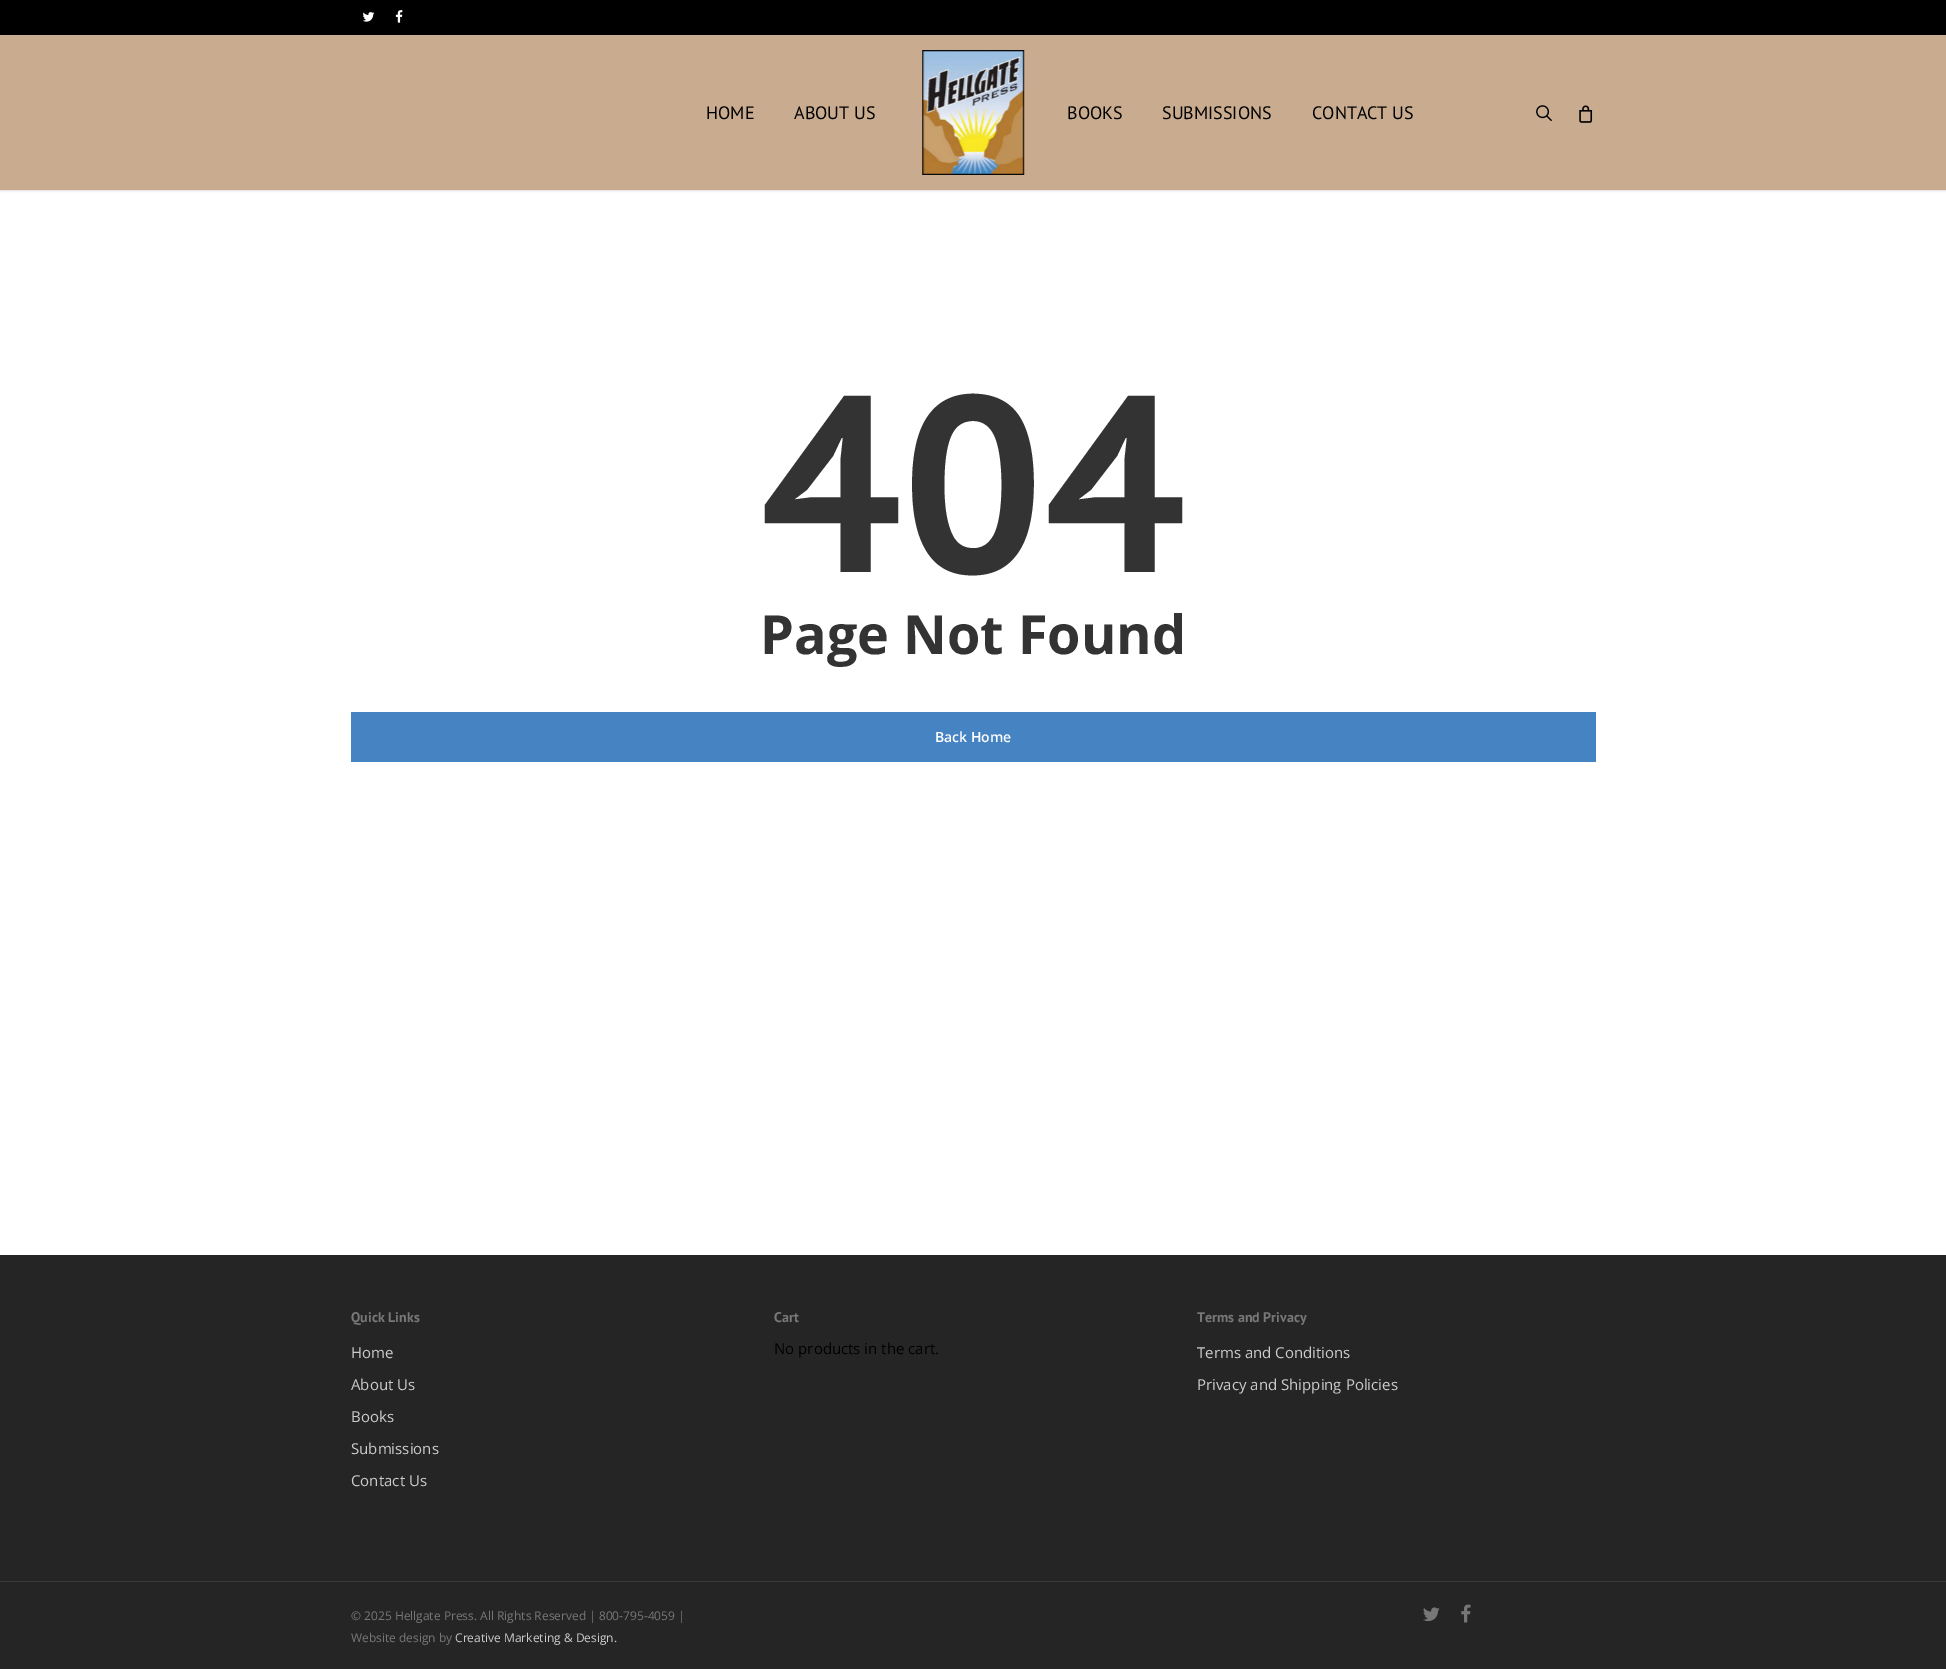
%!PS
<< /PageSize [1946 1669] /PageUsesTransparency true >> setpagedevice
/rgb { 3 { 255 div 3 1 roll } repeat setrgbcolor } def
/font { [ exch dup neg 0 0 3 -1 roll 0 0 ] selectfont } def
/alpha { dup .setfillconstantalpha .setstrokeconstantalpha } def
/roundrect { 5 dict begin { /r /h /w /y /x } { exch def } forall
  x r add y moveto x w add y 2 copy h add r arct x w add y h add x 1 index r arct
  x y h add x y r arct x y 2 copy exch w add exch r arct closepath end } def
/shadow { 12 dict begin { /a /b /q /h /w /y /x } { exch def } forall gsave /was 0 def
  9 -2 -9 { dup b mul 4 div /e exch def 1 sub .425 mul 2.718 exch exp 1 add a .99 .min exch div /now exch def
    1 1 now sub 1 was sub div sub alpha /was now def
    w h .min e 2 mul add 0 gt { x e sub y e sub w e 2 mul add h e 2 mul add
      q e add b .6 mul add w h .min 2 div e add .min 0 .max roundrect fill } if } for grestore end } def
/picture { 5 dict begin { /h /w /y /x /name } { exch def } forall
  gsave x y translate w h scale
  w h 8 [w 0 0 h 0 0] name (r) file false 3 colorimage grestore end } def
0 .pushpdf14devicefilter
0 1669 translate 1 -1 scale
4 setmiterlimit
255 255 255 rgb
0 0 1946 1669 rectfill
0 0 0 rgb
0 0 1946 190 0 1.5 0.22 shadow
201 172 143 rgb
0 35 1946 155 rectfill
0 0 0 rgb
0 0 1946 35 rectfill
(img/1.rgb) 362 12 13 10 picture
(img/2.rgb) 395 10 8 13 picture
(img/3.rgb) 922 50 103 125 picture
(img/4.rgb) 1536 105 16 16 picture
(img/5.rgb) 1579 105 14 18 picture
[
  [351 712 1245 50 70 131 194]
  [0 1255 1946 414 37 37 37]
  [0 1581 1946 1 59 59 59]
] { aload pop rgb rectfill } forall
(img/6.rgb) 1423 1607 17 15 picture
(img/7.rgb) 1461 1604 10 19 picture
/PTSans-Regular 18 font
0 0 0 rgb
[
  [(HOME) 706 119]
  [(ABOUT US) 794 119]
  [(BOOKS) 1067 119]
  [(SUBMISSIONS) 1162 119]
  [(CONTACT US) 1312 119]
] { aload pop moveto show } forall
/PTSans-Bold 250 font
51 51 51 rgb
760 572 moveto (404) show
/OpenSans-Bold 54 font
760 654 moveto (Page Not Found) show
/OpenSans-SemiBold 14 font
255 255 255 rgb
935 742 moveto (Back Home) show
/PTSans-Bold 14 font
119 119 119 rgb
351 1322 moveto (Quick Links) show
/OpenSans-Regular 15 font
204 204 204 rgb
[
  [(Home) 351 1358]
  [(About Us) 351 1390]
  [(Books) 351 1422]
  [(Submissions) 351 1454]
  [(Contact Us) 351 1486]
] { aload pop moveto show } forall
/PTSans-Bold 14 font
119 119 119 rgb
774 1322 moveto (Cart) show
/OpenSans-Regular 15 font
0 0 0 rgb
774 1354 moveto (No products in the cart.) show
/PTSans-Bold 14 font
119 119 119 rgb
1197 1322 moveto (Terms and Privacy) show
/OpenSans-Regular 15 font
204 204 204 rgb
1197 1358 moveto (Terms and Conditions) show
1197 1390 moveto (Privacy and Shipping Policies) show
/OpenSans-Regular 12 font
119 119 119 rgb
351 1620 moveto (© 2025 Hellgate Press. All Rights Reserved | 800-795-4059 |) show
351 1642 moveto (Website design by) show
204 204 204 rgb
455 1642 moveto (Creative Marketing & Design.) show
.poppdf14devicefilter showpage
